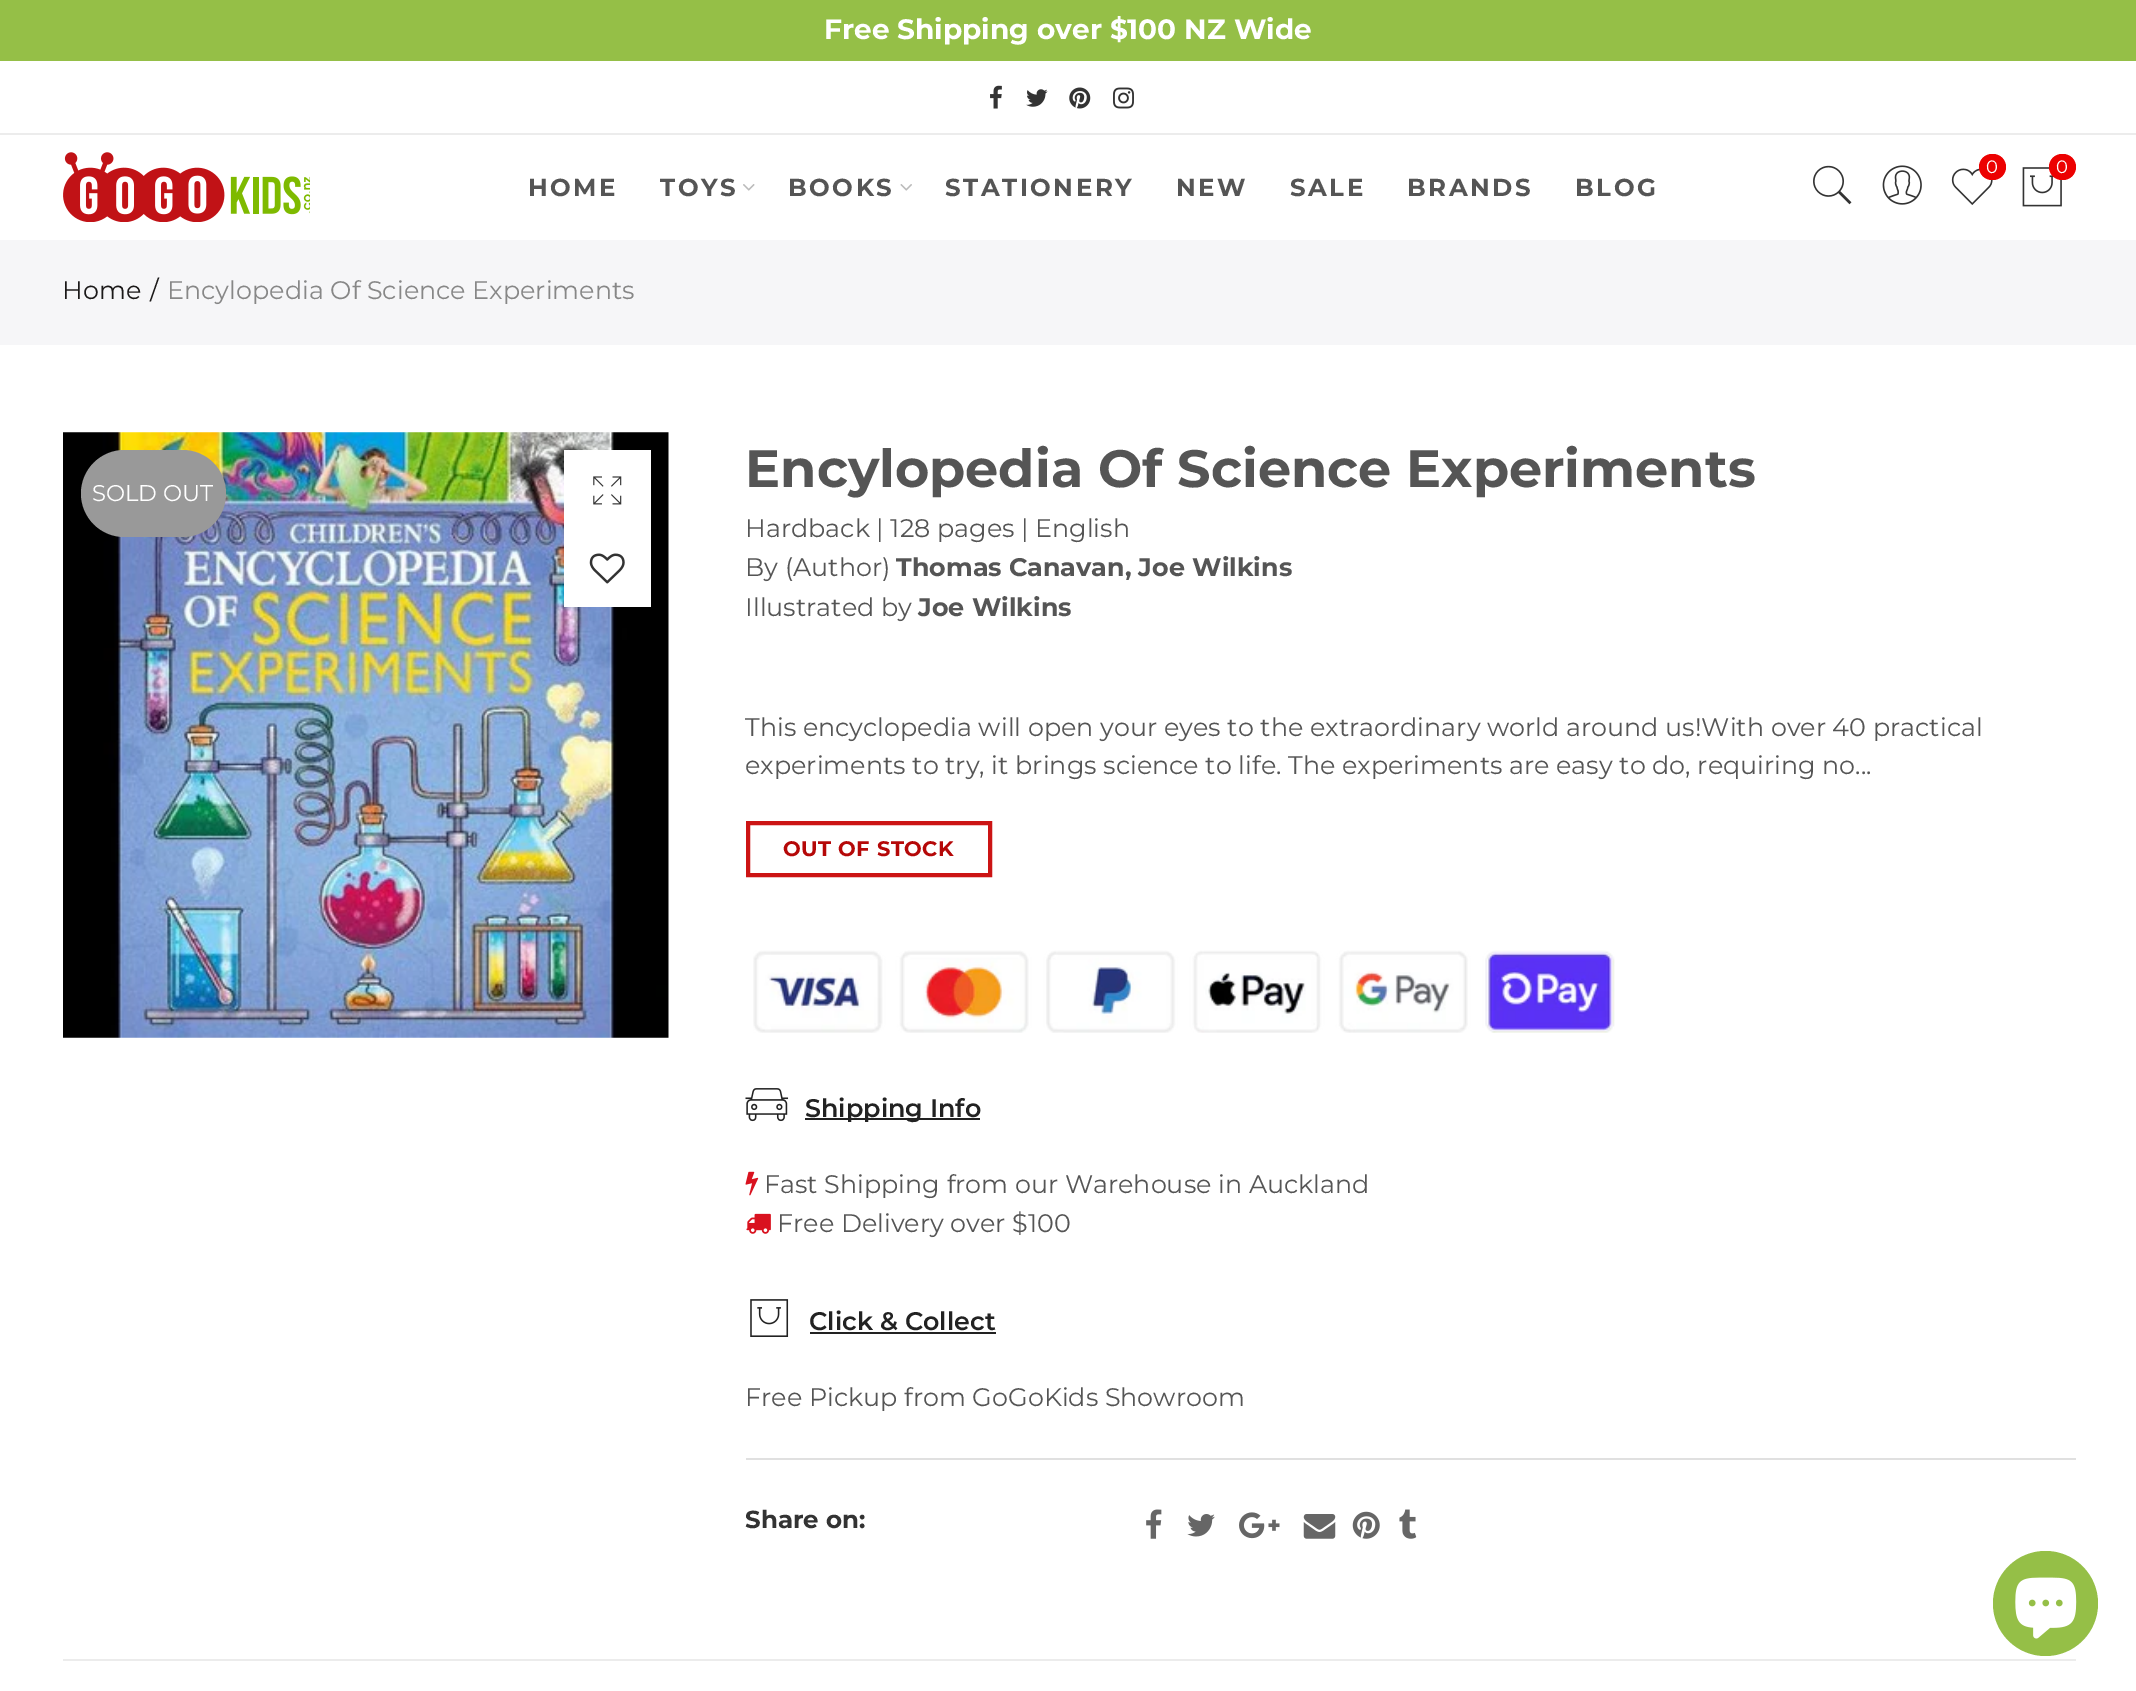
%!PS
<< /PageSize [2136 1691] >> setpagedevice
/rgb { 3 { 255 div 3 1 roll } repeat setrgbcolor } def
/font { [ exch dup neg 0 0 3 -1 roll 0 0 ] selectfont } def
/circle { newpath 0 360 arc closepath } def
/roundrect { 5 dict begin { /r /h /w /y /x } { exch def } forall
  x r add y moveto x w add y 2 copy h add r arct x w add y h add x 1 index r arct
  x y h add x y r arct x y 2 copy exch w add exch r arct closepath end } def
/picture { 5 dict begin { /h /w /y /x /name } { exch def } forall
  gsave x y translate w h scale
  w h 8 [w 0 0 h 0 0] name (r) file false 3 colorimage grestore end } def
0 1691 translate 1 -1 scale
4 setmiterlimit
255 255 255 rgb
0 0 2136 1691 rectfill
149 191 71 rgb
0 0 2136 61 rectfill
236 236 236 rgb
0 133 2136 2 rectfill
(img/1.rgb) 990 85 12 24 picture
(img/2.rgb) 1026 89 22 18 picture
(img/3.rgb) 1069 87 22 22 picture
(img/4.rgb) 1113 87 21 22 picture
(img/5.rgb) 63 152 247 70 picture
(img/6.rgb) 1813 165 39 40 picture
(img/7.rgb) 1882 165 40 40 picture
(img/8.rgb) 1951 168 42 37 picture
236 1 1 rgb
1979 154 27 26 13 roundrect fill
(img/9.rgb) 2022 167 40 40 picture
2049 154 27 26 13 roundrect fill
(img/10.rgb) 743 184 12 7 picture
(img/11.rgb) 900 184 12 7 picture
246 246 248 rgb
0 240 2136 105 rectfill
(img/12.rgb) 63 432 606 606 picture
153 153 153 rgb
81 450 145 87 43.5 roundrect fill
255 255 255 rgb
564 450 87 157 rectfill
(img/13.rgb) 593 476 29 29 picture
(img/14.rgb) 589 553 36 31 picture
204 20 20 rgb
4 setlinewidth
748 823 242 52 rectstroke
(img/15.rgb) 753 950 862 83 picture
(img/16.rgb) 745 1088 44 34 picture
34 34 34 rgb
805 1118 175 2 rectfill
(img/17.rgb) 745 1171 14 25 picture
(img/18.rgb) 746 1213 25 21 picture
(img/19.rgb) 750 1299 39 38 picture
810 1332 186 2 rectfill
224 224 224 rgb
746 1458 1330 2 rectfill
(img/20.rgb) 1146 1509 16 30 picture
(img/21.rgb) 1187 1514 28 23 picture
(img/22.rgb) 1239 1512 41 27 picture
(img/23.rgb) 1303 1514 33 25 picture
(img/24.rgb) 1352 1511 28 28 picture
(img/25.rgb) 1399 1509 18 30 picture
236 236 236 rgb
63 1659 2013 2 rectfill
149 191 71 rgb
2045.5 1603.5 52.5 circle fill
(img/26.rgb) 2015 1577 62 62 picture
/Montserrat-Bold 28 font
255 255 255 rgb
824 39 moveto (Free Shipping over $100 NZ Wide) show
/Montserrat-Regular 18 font
1986 173 moveto (0) show
2056 173 moveto (0) show
/Montserrat-Bold 24.5 font
85 85 85 rgb
528 196 moveto 2.5 0 (HOME) ashow
660 196 moveto 2.5 0 (TOYS) ashow
788 196 moveto 2.5 0 (BOOKS) ashow
945 196 moveto 2.5 0 (STATIONERY) ashow
1176 196 moveto 2.5 0 (NEW) ashow
1290 196 moveto 2.5 0 (SALE) ashow
1407 196 moveto 2.5 0 (BRANDS) ashow
1575 196 moveto 2.5 0 (BLOG) ashow
/Montserrat-Regular 25.4 font
27 25 25 rgb
62 299 moveto (Home) show
150 299 moveto (/) show
135 135 135 rgb
167 299 moveto (Encylopedia Of Science Experiments) show
/Montserrat-Regular 22.75 font
255 255 255 rgb
92 501 moveto (SOLD OUT) show
/Montserrat-Bold 52.5 font
85 85 85 rgb
745 487 moveto (Encylopedia Of Science Experiments) show
/Montserrat-Regular 25.4 font
745 537 moveto (Hardback | 128 pages | English) show
745 576 moveto (By \(Author\)) show
/Montserrat-Bold 25.4 font
896 576 moveto (Thomas Canavan, Joe Wilkins) show
/Montserrat-Regular 25.4 font
745 616 moveto (Illustrated by) show
/Montserrat-Bold 25.4 font
918 616 moveto (Joe Wilkins) show
/Montserrat-Regular 25.4 font
745 736 moveto (This encyclopedia will open your eyes to the extraordinary world around us!With over 40 practical) show
745 774 moveto (experiments to try, it brings science to life. The experiments are easy to do, requiring no...) show
/Montserrat-Bold 21 font
181 8 8 rgb
783 856 moveto 0.5 0 (OUT OF STOCK) ashow
/Montserrat-SemiBold 25.4 font
34 34 34 rgb
805 1117 moveto (Shipping Info) show
/Montserrat-Regular 25.4 font
85 85 85 rgb
764 1193 moveto (Fast Shipping from our Warehouse in Auckland) show
777 1232 moveto (Free Delivery over $100) show
/Montserrat-SemiBold 25.4 font
34 34 34 rgb
809 1330 moveto (Click & Collect) show
/Montserrat-Regular 25.4 font
85 85 85 rgb
745 1406 moveto (Free Pickup from GoGoKids Showroom) show
/Montserrat-Bold 24.5 font
51 51 51 rgb
745 1528 moveto (Share on:) show
showpage
